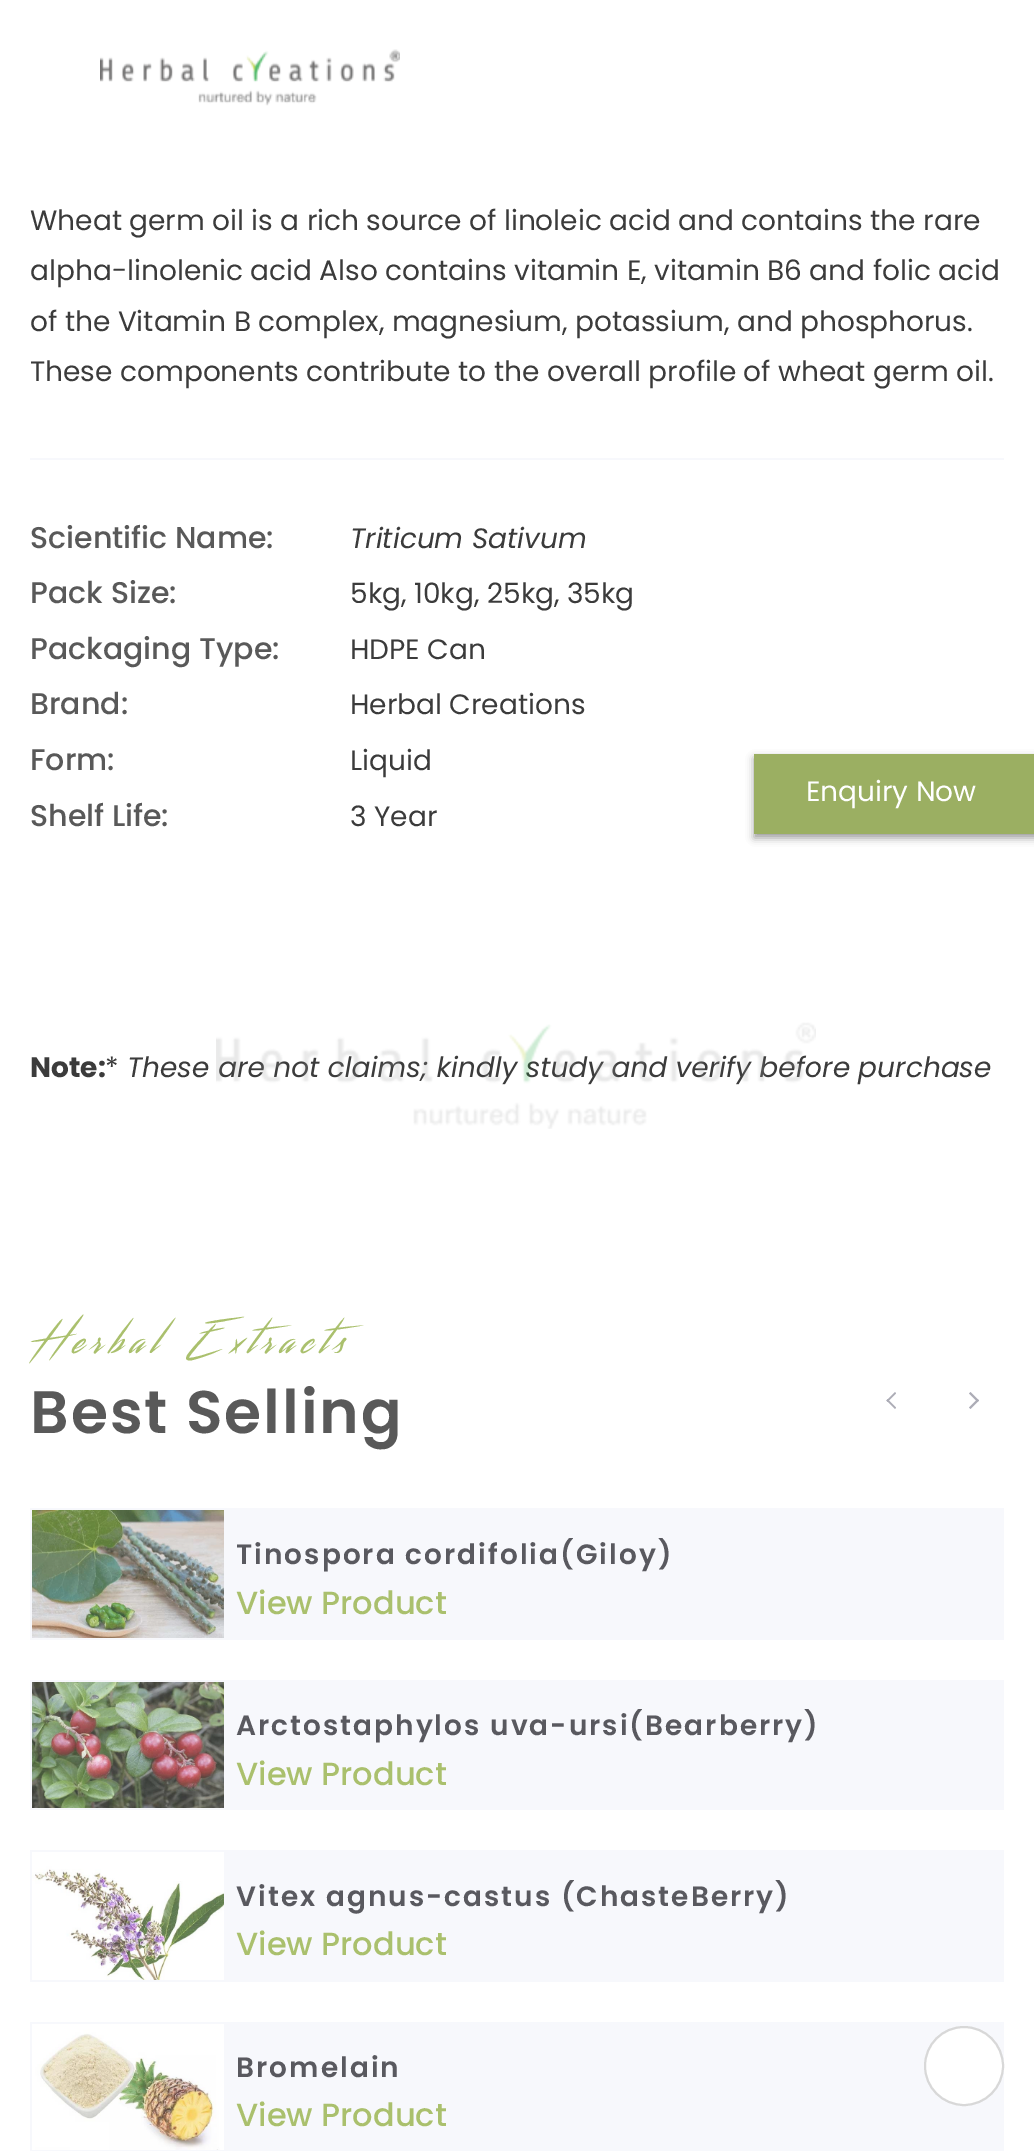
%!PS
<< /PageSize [1034 2151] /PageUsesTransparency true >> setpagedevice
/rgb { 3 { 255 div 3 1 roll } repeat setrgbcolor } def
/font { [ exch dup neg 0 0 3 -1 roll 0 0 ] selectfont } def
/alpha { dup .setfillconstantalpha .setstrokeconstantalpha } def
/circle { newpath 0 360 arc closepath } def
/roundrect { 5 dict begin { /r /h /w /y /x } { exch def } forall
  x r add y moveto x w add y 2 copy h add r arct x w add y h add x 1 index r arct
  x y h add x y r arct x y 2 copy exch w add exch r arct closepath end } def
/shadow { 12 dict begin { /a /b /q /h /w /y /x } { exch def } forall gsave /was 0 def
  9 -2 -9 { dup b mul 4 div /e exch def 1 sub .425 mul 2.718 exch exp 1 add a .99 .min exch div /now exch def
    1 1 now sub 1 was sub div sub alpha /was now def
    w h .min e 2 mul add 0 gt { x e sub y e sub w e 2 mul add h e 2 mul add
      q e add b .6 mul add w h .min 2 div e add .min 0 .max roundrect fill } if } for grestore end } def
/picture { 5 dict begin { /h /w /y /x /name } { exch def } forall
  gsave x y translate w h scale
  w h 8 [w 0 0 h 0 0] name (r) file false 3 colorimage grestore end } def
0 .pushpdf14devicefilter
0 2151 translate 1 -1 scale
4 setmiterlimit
255 255 255 rgb
0 0 1034 2151 rectfill
247 248 252 rgb
30 458 974 2 rectfill
172 172 182 rgb
886.5 1400.5 moveto 895 1392 lineto 896 1393.5 lineto 887.5 1402 lineto closepath fill
886.5 1400.5 moveto 887.5 1399 lineto 896 1407.5 lineto 895 1409 lineto closepath fill
979 1400.5 moveto 970.5 1409 lineto 969 1407.5 lineto 977.5 1399 lineto closepath fill
979 1400.5 moveto 977.5 1402 lineto 969 1393.5 lineto 970.5 1392 lineto closepath fill
247 248 252 rgb
30 1508 974 132 rectfill
(img/1.rgb) 32 1510 192 128 picture
30 1680 974 130 rectfill
(img/2.rgb) 32 1682 192 126 picture
30 1850 974 132 rectfill
(img/3.rgb) 32 1852 192 128 picture
30 2022 974 129 rectfill
(img/4.rgb) 32 2024 192 126 picture
(img/5.rgb) 100 49 300 57 picture
155 155 155 rgb
754 758 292 80 0 4 1 shadow
155 175 98 rgb
754 754 280 80 rectfill
255 255 255 rgb
964 2066 39 circle gsave fill grestore
216 216 216 rgb
2 setlinewidth
stroke
/Poppins-Regular 28 font
59 59 59 rgb
[
  [(Wheat germ oil is a rich source of linoleic acid and contains the rare) 30 230]
  [(alpha-linolenic acid Also contains vitamin E, vitamin B6 and folic acid) 30 280]
  [(of the Vitamin B complex, magnesium, potassium, and phosphorus.) 30 331]
  [(These components contribute to the overall profile of wheat germ oil.) 30 381]
] { aload pop moveto show } forall
/Poppins-Medium 30 font
89 89 89 rgb
30 548 moveto (Scientific Name:) show
/Poppins-Italic 28 font
59 59 59 rgb
350 548 moveto (Triticum Sativum) show
/Poppins-Medium 30 font
89 89 89 rgb
30 603 moveto (Pack Size:) show
/Poppins-Regular 28 font
59 59 59 rgb
350 603 moveto (5kg, 10kg, 25kg, 35kg) show
/Poppins-Medium 30 font
89 89 89 rgb
30 659 moveto (Packaging Type:) show
/Poppins-Regular 28 font
59 59 59 rgb
350 659 moveto (HDPE Can) show
/Poppins-Medium 30 font
89 89 89 rgb
30 714 moveto (Brand:) show
/Poppins-Regular 28 font
59 59 59 rgb
350 714 moveto (Herbal Creations) show
/Poppins-Medium 30 font
89 89 89 rgb
30 770 moveto (Form:) show
/Poppins-Regular 28 font
59 59 59 rgb
350 770 moveto (Liquid) show
/Poppins-Medium 30 font
89 89 89 rgb
30 826 moveto (Shelf Life:) show
/Poppins-Regular 28 font
59 59 59 rgb
350 826 moveto (3 Year) show
/Poppins-Bold 28 font
30 1077 moveto (Note:) show
/Poppins-Regular 28 font
105 1077 moveto (*) show
/Poppins-Italic 28 font
127 1077 moveto (These are not claims; kindly study and verify before purchase) show
/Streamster-Regular 40 font
170 192 109 rgb
30 1353 moveto 8 0 (Herbal Extracts) ashow
/Poppins-SemiBold 60 font
89 89 89 rgb
30 1433 moveto 2 0 (Best Selling) ashow
/Poppins-SemiBold 28 font
89 89 95 rgb
236 1564 moveto 2 0 (Tinospora cordifolia\(Giloy\)) ashow
/Poppins-Medium 32 font
170 192 109 rgb
236 1614 moveto (View Product) show
/Poppins-SemiBold 28 font
89 89 95 rgb
236 1735 moveto 2 0 (Arctostaphylos uva-ursi\(Bearberry\)) ashow
/Poppins-Medium 32 font
170 192 109 rgb
236 1785 moveto (View Product) show
/Poppins-SemiBold 28 font
89 89 95 rgb
236 1906 moveto 2 0 (Vitex agnus-castus \(ChasteBerry\)) ashow
/Poppins-Medium 32 font
170 192 109 rgb
236 1955 moveto (View Product) show
/Poppins-SemiBold 28 font
89 89 95 rgb
236 2077 moveto 2 0 (Bromelain) ashow
/Poppins-Medium 32 font
170 192 109 rgb
236 2126 moveto (View Product) show
/Poppins-Regular 28 font
255 255 255 rgb
806 801 moveto (Enquiry Now) show
(img/6.rgb) 216 1022 600 107 picture
.poppdf14devicefilter showpage
